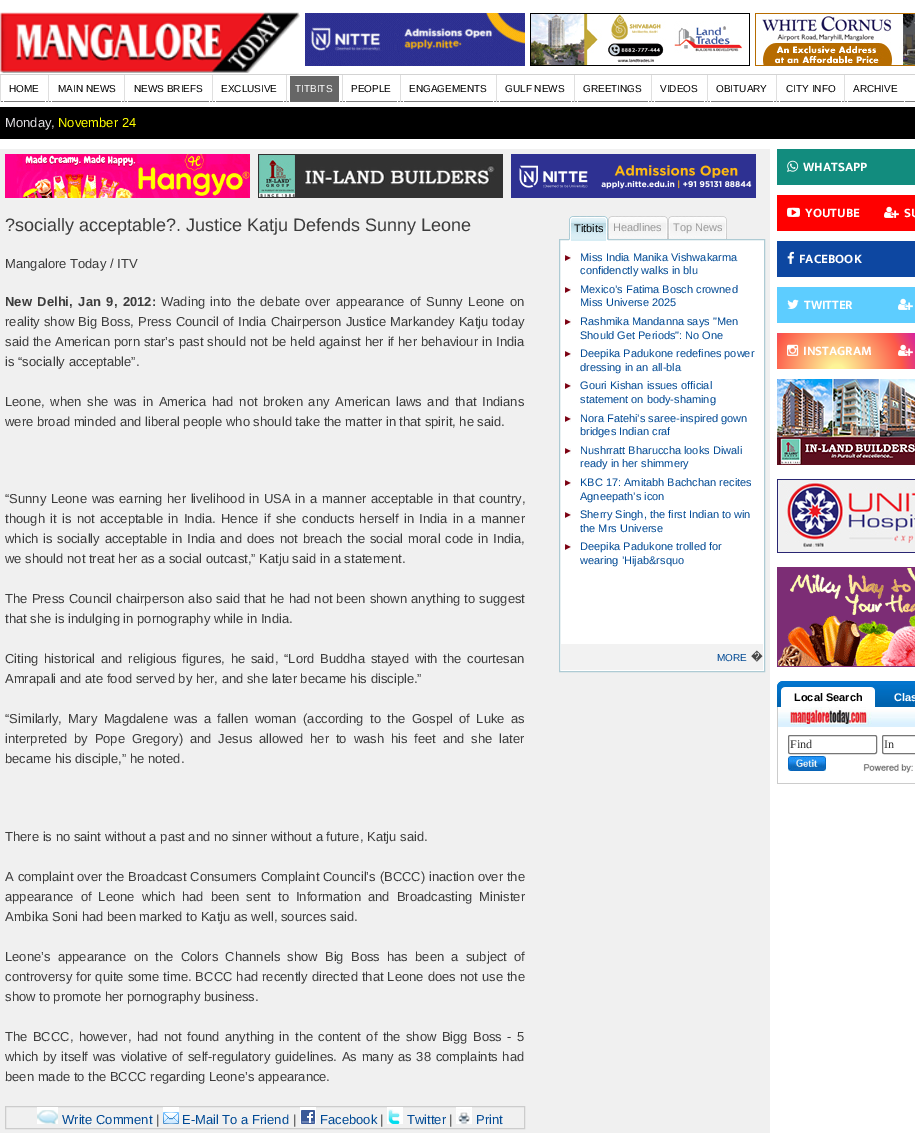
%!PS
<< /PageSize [915 1133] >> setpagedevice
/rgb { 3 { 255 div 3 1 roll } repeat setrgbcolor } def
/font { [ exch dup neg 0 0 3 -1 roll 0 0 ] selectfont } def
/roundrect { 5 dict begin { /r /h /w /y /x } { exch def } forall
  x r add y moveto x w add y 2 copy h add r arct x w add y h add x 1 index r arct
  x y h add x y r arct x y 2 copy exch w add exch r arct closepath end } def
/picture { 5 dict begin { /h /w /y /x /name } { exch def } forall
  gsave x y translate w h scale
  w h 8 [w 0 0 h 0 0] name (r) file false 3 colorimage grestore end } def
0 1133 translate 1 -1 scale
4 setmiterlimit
255 255 255 rgb
0 0 915 1133 rectfill
(img/1.rgb) 0 12 300 61 picture
(img/2.rgb) 305 13 220 53 picture
(img/3.rgb) 530 13 220 53 picture
(img/4.rgb) 755 13 160 53 picture
[
  [0 74 915 1 211 211 211]
  [0 101 915 1 124 124 124]
  [0 75 1 27 223 223 223]
  [45 101 1 1 255 255 255]
  [3 101 1 1 255 255 255]
  [48 75 1 27 223 223 223]
  [121 101 1 1 255 255 255]
  [51 101 1 1 255 255 255]
  [124 75 1 27 223 223 223]
  [209 101 1 1 255 255 255]
  [127 101 1 1 255 255 255]
  [212 75 1 27 223 223 223]
  [283 101 1 1 255 255 255]
  [215 101 1 1 255 255 255]
  [286 75 1 27 223 223 223]
  [290 76 49 26 102 102 102]
  [339 101 1 1 255 255 255]
  [289 101 1 1 255 255 255]
  [342 75 1 27 223 223 223]
  [397 101 1 1 255 255 255]
  [345 101 1 1 255 255 255]
  [400 75 1 27 223 223 223]
  [493 101 1 1 255 255 255]
  [403 101 1 1 255 255 255]
  [496 75 1 27 223 223 223]
  [571 101 1 1 255 255 255]
  [499 101 1 1 255 255 255]
  [574 75 1 27 223 223 223]
  [648 101 1 1 255 255 255]
  [577 101 1 1 255 255 255]
  [651 75 1 27 223 223 223]
  [704 101 1 1 255 255 255]
  [654 101 1 1 255 255 255]
  [707 75 1 27 223 223 223]
  [773 101 1 1 255 255 255]
  [710 101 1 1 255 255 255]
  [776 75 1 27 223 223 223]
  [841 101 1 1 255 255 255]
  [779 101 1 1 255 255 255]
  [844 75 1 27 223 223 223]
  [904 101 1 1 255 255 255]
  [847 101 1 1 255 255 255]
  [0 107 915 32 0 0 0]
  [0 149 770 984 240 240 240]
] { aload pop rgb rectfill } forall
(img/5.rgb) 5 154 245 44 picture
(img/6.rgb) 258 154 245 44 picture
(img/7.rgb) 511 154 245 44 picture
204 204 204 rgb
5.5 1106.5 519 22 rectstroke
(img/8.rgb) 37 1107 21 17 picture
(img/9.rgb) 163 1107 16 17 picture
(img/10.rgb) 300 1107 16 17 picture
(img/11.rgb) 387 1107 16 17 picture
(img/12.rgb) 456 1107 16 17 picture
255 255 255 rgb
559.5 239.5 moveto 764.5 239.5 lineto 764.5 671.5 lineto 559.5 671.5 lineto closepath gsave fill grestore
174 203 212 rgb
stroke
(img/13.rgb) 569 216 35 25 picture
(img/14.rgb) 604 216 4 25 picture
(img/15.rgb) 608 216 57 23 picture
(img/16.rgb) 665 216 3 23 picture
(img/17.rgb) 668 216 56 23 picture
(img/16.rgb) 724 216 3 23 picture
(img/18.rgb) 565 255 6 6 picture
(img/18.rgb) 565 287 6 6 picture
(img/18.rgb) 565 319 6 6 picture
(img/18.rgb) 565 351 6 6 picture
(img/18.rgb) 565 383 6 6 picture
(img/18.rgb) 565 416 6 6 picture
(img/18.rgb) 565 448 6 6 picture
(img/18.rgb) 565 480 6 6 picture
(img/18.rgb) 565 512 6 6 picture
(img/18.rgb) 565 544 6 6 picture
242 242 242 rgb
561 644 202 26 rectfill
18 140 126 rgb
777 149 138 36 rectfill
(img/19.rgb) 787 160 12 12 picture
255 0 0 rgb
777 195 138 36 rectfill
(img/20.rgb) 787 207 13 10 picture
(img/21.rgb) 884 206 15 12 picture
13 71 161 rgb
777 241 138 36 rectfill
(img/22.rgb) 787 251 7 13 picture
93 205 255 rgb
777 287 138 36 rectfill
(img/23.rgb) 787 299 12 10 picture
(img/24.rgb) 898 298 15 12 picture
gsave 777 333 moveto 915 333 lineto 915 369 lineto 777 369 lineto closepath clip newpath 837 372 translate 145 145 scale
<< /ShadingType 3 /ColorSpace /DeviceRGB /Coords [0 0 0 0 0 1] /Extend [true true] /Function << /FunctionType 3 /Domain [0 1] /Functions [<< /FunctionType 2 /Domain [0 1] /C0 [0.992 0.957 0.592] /C1 [0.992 0.957 0.592] /N 1 >> << /FunctionType 2 /Domain [0 1] /C0 [0.992 0.957 0.592] /C1 [0.992 0.349 0.286] /N 1 >> << /FunctionType 2 /Domain [0 1] /C0 [0.992 0.349 0.286] /C1 [0.839 0.141 0.624] /N 1 >> << /FunctionType 2 /Domain [0 1] /C0 [0.839 0.141 0.624] /C1 [0.157 0.353 0.922] /N 1 >> << /FunctionType 2 /Domain [0 1] /C0 [0.157 0.353 0.922] /C1 [0.157 0.353 0.922] /N 1 >>] /Bounds [0.05 0.45 0.6 0.9] /Encode [0 1 0 1 0 1 0 1 0 1] >> >> shfill grestore
(img/25.rgb) 787 344 12 12 picture
(img/26.rgb) 898 344 15 12 picture
(img/27.rgb) 777 379 138 86 picture
(img/28.rgb) 777 479 138 74 picture
(img/29.rgb) 777 567 138 100 picture
(img/30.rgb) 777 681 138 26 picture
(img/31.rgb) 781 687 94 20 picture
204 204 204 rgb
777 783 138 1 rectfill
777 707 1 77 rectfill
(img/32.rgb) 778 707 137 20 picture
118 118 118 rgb
788.5 735.5 88 18 1.5 roundrect stroke
882.5 735.5 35 18 1.5 roundrect stroke
(img/33.rgb) 788 756 38 15 picture
(img/34.rgb) 863 764 50 9 picture
/LiberationSans-Regular 10 font
0 0 0 rgb
[
  [(HOME) 9 92]
  [(MAIN NEWS) 58 92]
  [(NEWS BRIEFS) 134 92]
  [(EXCLUSIVE) 221 92]
] { aload pop moveto show } forall
255 255 255 rgb
295 92 moveto (TITBITS) show
0 0 0 rgb
[
  [(PEOPLE) 351 92]
  [(ENGAGEMENTS) 409 92]
  [(GULF NEWS) 505 92]
  [(GREETINGS) 583 92]
  [(VIDEOS) 660 92]
  [(OBITUARY) 716 92]
  [(CITY INFO) 786 92]
  [(ARCHIVE) 853 92]
] { aload pop moveto show } forall
/LiberationSans-Regular 13 font
227 225 229 rgb
5 127 moveto (Monday,) show
255 255 0 rgb
58 127 moveto (November 24) show
/LiberationSans-Regular 18 font
60 60 60 rgb
5 231 moveto (?socially acceptable?. Justice Katju Defends Sunny Leone) show
/LiberationSans-Regular 13 font
5 268 moveto (Mangalore Today / ITV) show
/LiberationSans-Bold 13 font
5 306 moveto 2 0 32 (New Delhi, Jan 9, 2012:) widthshow
/LiberationSans-Regular 13 font
161 306 moveto 1.75 0 32 (Wading into the debate over appearance of Sunny Leone on) widthshow
5 326 moveto 0.6 0 32 (reality show Big Boss, Press Council of India Chairperson Justice Markandey Katju today) widthshow
5 346 moveto 0.4 0 32 (said the American porn star’s past should not be held against her if her behaviour in India) widthshow
5 366 moveto (is “socially acceptable”.) show
5 406 moveto 2.1 0 32 (Leone, when she was in America had not broken any American laws and that Indians) widthshow
5 426 moveto (were broad minded and liberal people who should take the matter in that spirit, he said.) show
5 503 moveto 1 0 32 (“Sunny Leone was earning her livelihood in USA in a manner acceptable in that country,) widthshow
5 523 moveto 1.75 0 32 (though it is not acceptable in India. Hence if she conducts herself in India in a manner) widthshow
5 543 moveto 1.2 0 32 (which is socially acceptable in India and does not breach the social moral code in India,) widthshow
5 563 moveto (we should not treat her as a social outcast,” Katju said in a statement.) show
5 603 moveto 0.5 0 32 (The Press Council chairperson also said that he had not been shown anything to suggest) widthshow
5 623 moveto (that she is indulging in pornography while in India.) show
5 663 moveto 2.1 0 32 (Citing historical and religious figures, he said, “Lord Buddha stayed with the courtesan) widthshow
5 683 moveto (Amrapali and ate food served by her, and she later became his disciple.”) show
5 723 moveto 2.75 0 32 (“Similarly, Mary Magdalene was a fallen woman \(according to the Gospel of Luke as) widthshow
5 743 moveto 3.25 0 32 (interpreted by Pope Gregory\) and Jesus allowed her to wash his feet and she later) widthshow
5 763 moveto (became his disciple,” he noted.) show
5 841 moveto (There is no saint without a past and no sinner without a future, Katju said.) show
5 881 moveto 0.25 0 32 (A complaint over the Broadcast Consumers Complaint Council’s \(BCCC\) inaction over the) widthshow
5 901 moveto 3.4 0 32 (appearance of Leone which had been sent to Information and Broadcasting Minister) widthshow
5 921 moveto (Ambika Soni had been marked to Katju as well, sources said.) show
5 961 moveto 3.6 0 32 (Leone’s appearance on the Colors Channels show Big Boss has been a subject of) widthshow
5 981 moveto 0.4 0 32 (controversy for quite some time. BCCC had recently directed that Leone does not use the) widthshow
5 1001 moveto (show to promote her pornography business.) show
5 1041 moveto 1.75 0 32 (The BCCC, however, had not found anything in the content of the show Bigg Boss - 5) widthshow
5 1061 moveto 1.1 0 32 (which by itself was violative of self-regulatory guidelines. As many as 38 complaints had) widthshow
5 1081 moveto (been made to the BCCC regarding Leone’s appearance.) show
0 73 148 rgb
62 1124 moveto (Write Comment) show
60 60 60 rgb
156 1124 moveto (|) show
0 73 148 rgb
182 1124 moveto (E-Mail To a Friend) show
60 60 60 rgb
293 1124 moveto (|) show
0 73 148 rgb
320 1124 moveto (Facebook) show
60 60 60 rgb
380 1124 moveto (|) show
0 73 148 rgb
407 1124 moveto (Twitter) show
60 60 60 rgb
449 1124 moveto (|) show
0 73 148 rgb
476 1124 moveto (Print) show
/LiberationSans-Regular 11 font
0 0 0 rgb
574 232 moveto (Titbits) show
153 153 153 rgb
613 231 moveto (Headlines) show
673 231 moveto (Top News) show
0 73 148 rgb
[
  [(Miss India Manika Vishwakarma) 580 261]
  [(confidenctly walks in blu) 580 274]
  [(Mexico’s Fatima Bosch crowned) 580 293]
  [(Miss Universe 2025) 580 306]
  [(Rashmika Mandanna says "Men) 580 325]
  [(Should Get Periods": No One) 580 339]
  [(Deepika Padukone redefines power) 580 357]
  [(dressing in an all-bla) 580 371]
  [(Gouri Kishan issues official) 580 389]
  [(statement on body-shaming) 580 403]
  [(Nora Fatehi’s saree-inspired gown) 580 422]
  [(bridges Indian craf) 580 435]
  [(Nushrratt Bharuccha looks Diwali) 580 454]
  [(ready in her shimmery) 580 467]
  [(KBC 17: Amitabh Bachchan recites) 580 486]
  [(Agneepath’s icon) 580 500]
  [(Sherry Singh, the first Indian to win) 580 518]
  [(the Mrs Universe) 580 532]
  [(Deepika Padukone trolled for) 580 550]
  [(wearing ’Hijab&rsquo) 580 564]
] { aload pop moveto show } forall
/LiberationSans-Regular 10 font
717 661 moveto (MORE) show
/FreeSans-Regular 13 font
71 71 71 rgb
751 661 moveto (�) show
/MuktaVaani-Bold 13 font
255 255 255 rgb
[
  [(WHATSAPP) 803 171]
  [(YOUTUBE) 805 217]
  [(SU) 904 217]
  [(FACEBOOK) 799 263]
  [(TWITTER) 804 309]
  [(INSTAGRAM) 803 355]
] { aload pop moveto show } forall
/LiberationSans-Bold 11 font
0 0 0 rgb
794 701 moveto (Local Search) show
255 255 255 rgb
894 701 moveto (Clas) show
/LiberationSerif-Regular 12 font
51 51 51 rgb
790 748 moveto (Find) show
884 748 moveto (In) show
showpage
